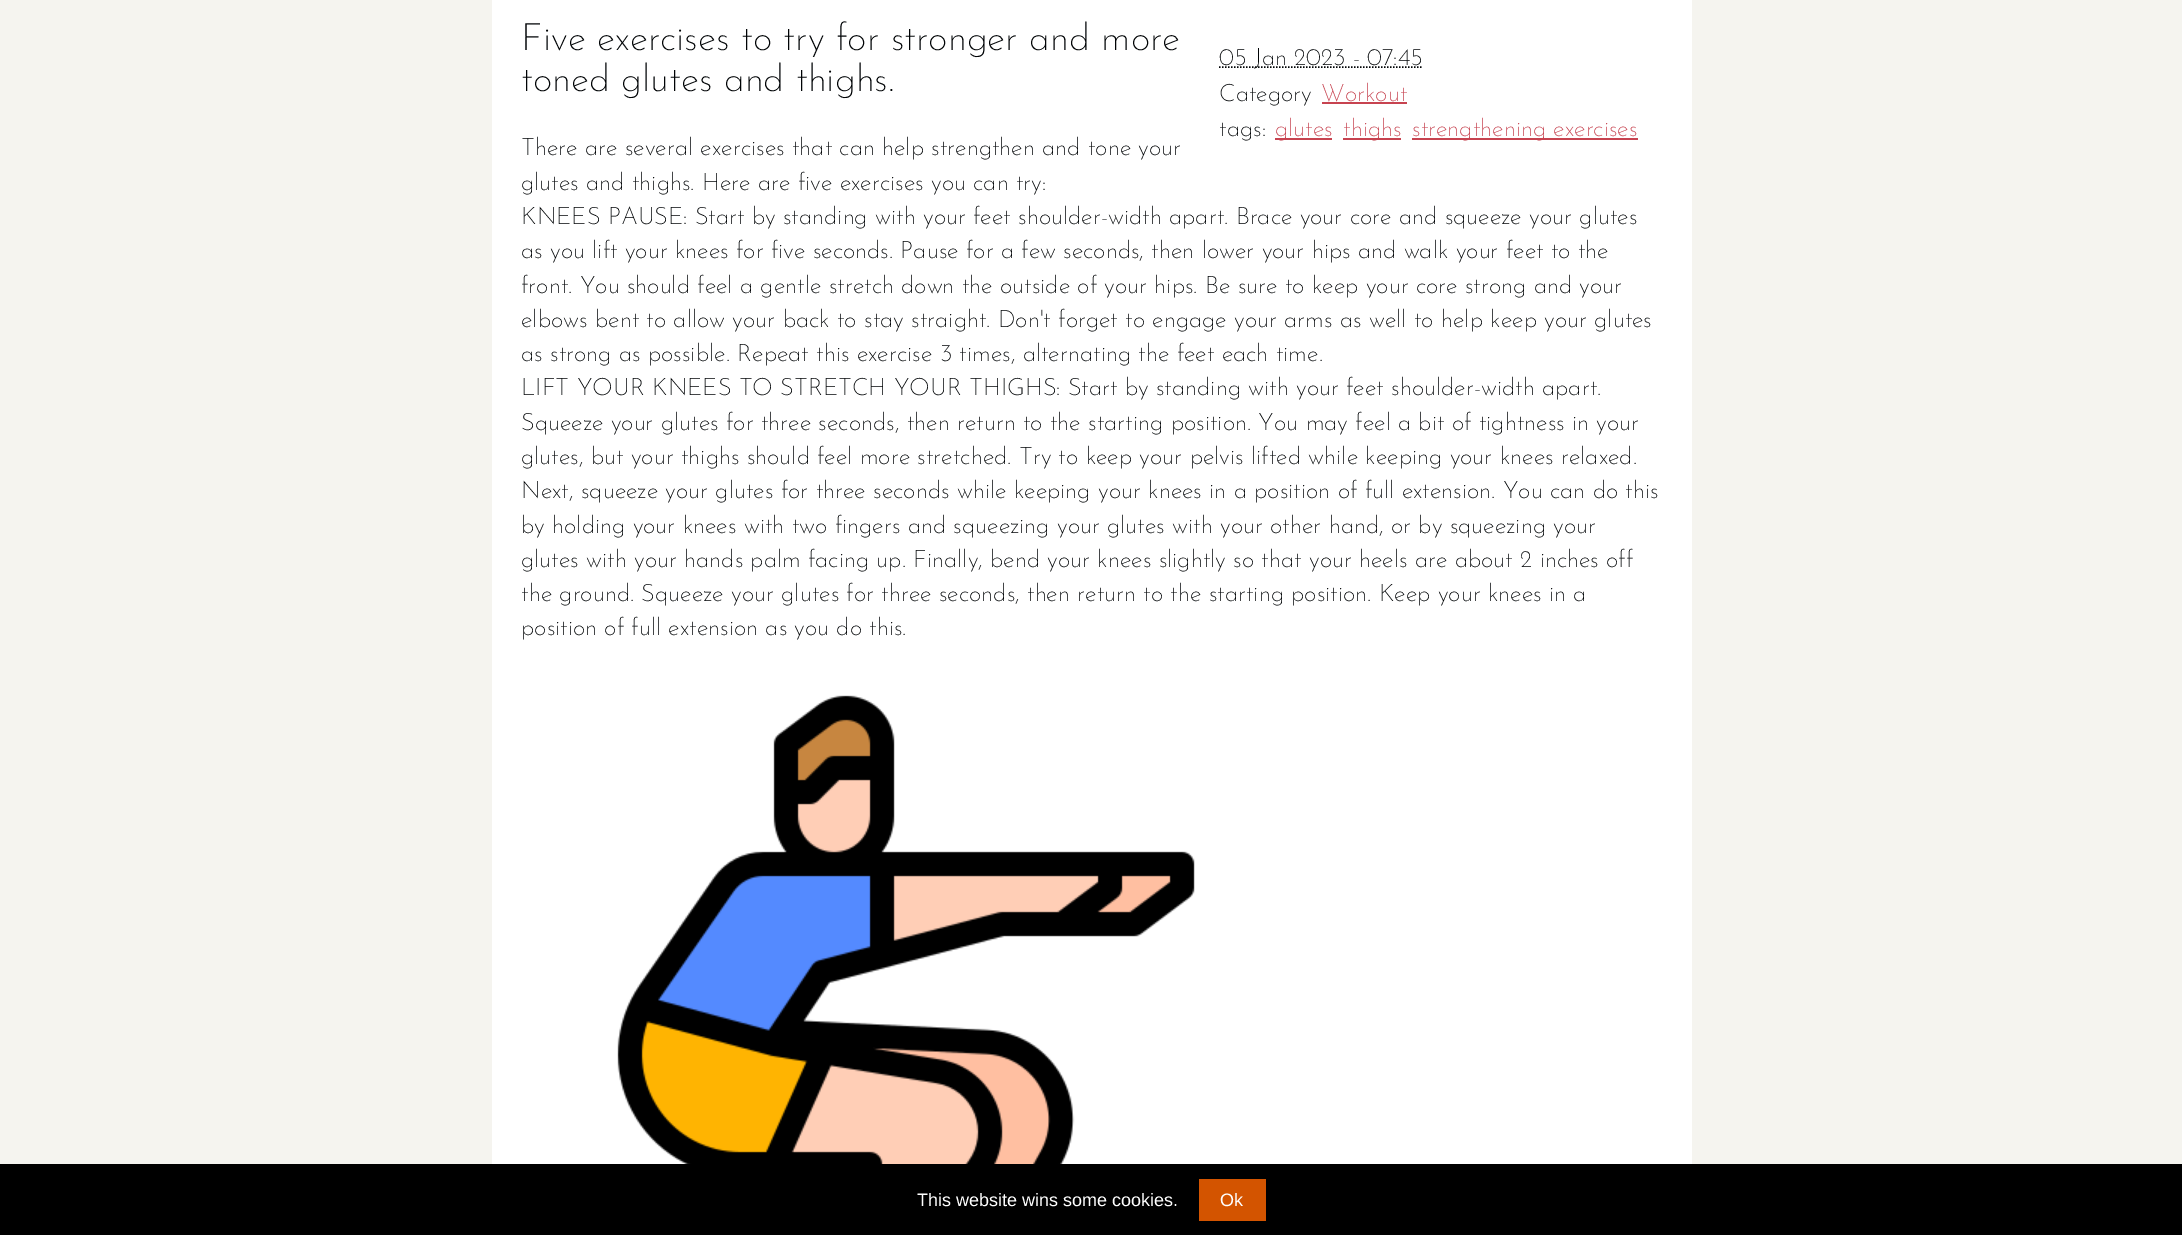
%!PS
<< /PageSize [2182 1235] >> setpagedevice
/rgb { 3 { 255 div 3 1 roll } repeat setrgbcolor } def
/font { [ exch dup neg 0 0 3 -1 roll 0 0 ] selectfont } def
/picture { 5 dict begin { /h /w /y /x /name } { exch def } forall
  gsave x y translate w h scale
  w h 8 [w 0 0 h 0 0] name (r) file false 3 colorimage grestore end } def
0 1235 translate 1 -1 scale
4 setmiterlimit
245 244 239 rgb
0 0 2182 1235 rectfill
255 255 255 rgb
492 0 1200 1164 rectfill
(img/1.rgb) 617 695 578 469 picture
0 3 5 rgb
1.5 setlinewidth
[1.5 1.5] 0 setdash
1219 67 moveto 1423 67 lineto stroke
[
  [1322 102 85 2 199 67 80]
  [1275 138 57 2 199 67 80]
  [1343 138 58 2 199 67 80]
  [1412 138 226 2 199 67 80]
  [0 1164 2182 71 0 0 0]
  [1199 1179 67 42 211 84 0]
] { aload pop rgb rectfill } forall
/JosefinSans-ExtraLight 37.75 font
0 3 5 rgb
521 50 moveto (Five exercises to try for stronger and more) show
521 91 moveto (toned glutes and thighs.) show
/JosefinSans-ExtraLight 24 font
[
  [(There are several exercises that can help strengthen and tone your) 521 155]
  [(glutes and thighs. Here are five exercises you can try:) 521 190]
  [(KNEES PAUSE: Start by standing with your feet shoulder-width apart. Brace your core and squeeze your glutes) 521 224]
  [(as you lift your knees for five seconds. Pause for a few seconds, then lower your hips and walk your feet to the) 521 258]
  [(front. You should feel a gentle stretch down the outside of your hips. Be sure to keep your core strong and your) 521 293]
  [(elbows bent to allow your back to stay straight. Don't forget to engage your arms as well to help keep your glutes) 521 327]
  [(as strong as possible. Repeat this exercise 3 times, alternating the feet each time.) 521 361]
  [(LIFT YOUR KNEES TO STRETCH YOUR THIGHS: Start by standing with your feet shoulder-width apart.) 521 395]
  [(Squeeze your glutes for three seconds, then return to the starting position. You may feel a bit of tightness in your) 521 430]
  [(glutes, but your thighs should feel more stretched. Try to keep your pelvis lifted while keeping your knees relaxed.) 521 464]
  [(Next, squeeze your glutes for three seconds while keeping your knees in a position of full extension. You can do this) 521 498]
  [(by holding your knees with two fingers and squeezing your glutes with your other hand, or by squeezing your) 521 533]
  [(glutes with your hands palm facing up. Finally, bend your knees slightly so that your heels are about 2 inches off) 521 567]
  [(the ground. Squeeze your glutes for three seconds, then return to the starting position. Keep your knees in a) 521 601]
  [(position of full extension as you do this.) 521 635]
  [(05 Jan 2023 - 07:45) 1219 65]
  [(Category) 1219 101]
] { aload pop moveto show } forall
199 67 80 rgb
1321 101 moveto (Workout) show
0 3 5 rgb
1219 136 moveto (tags:) show
199 67 80 rgb
[
  [(glutes) 1275 136]
  [(thighs) 1343 136]
  [(strengthening exercises) 1412 136]
] { aload pop moveto show } forall
/LiberationSans-Regular 18 font
255 255 255 rgb
917 1206 moveto (This website wins some cookies.) show
1220 1206 moveto (Ok) show
showpage
